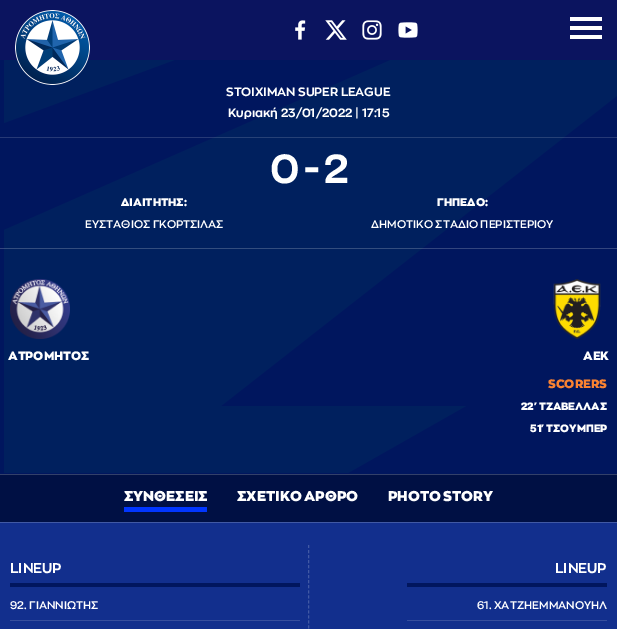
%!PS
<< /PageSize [617 629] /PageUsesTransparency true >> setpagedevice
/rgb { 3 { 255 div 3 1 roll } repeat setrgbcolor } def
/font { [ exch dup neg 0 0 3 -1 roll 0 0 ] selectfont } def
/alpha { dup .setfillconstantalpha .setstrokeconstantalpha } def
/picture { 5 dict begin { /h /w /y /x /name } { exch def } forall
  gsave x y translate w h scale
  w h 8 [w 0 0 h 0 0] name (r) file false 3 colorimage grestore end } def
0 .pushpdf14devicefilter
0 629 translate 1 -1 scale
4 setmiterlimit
0 16 68 rgb
0 0 617 629 rectfill
0 22 94 rgb
0 60 617 414 rectfill
0 32 94 rgb
348 473 moveto 4 473 lineto 4 230 lineto 402 55 lineto 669 55 lineto 221 406 lineto 466 406 lineto closepath 4 123 moveto 4 55 lineto 188 55 lineto closepath fill
11 20 95 rgb
0 0 617 60 rectfill
(img/1.rgb) 15 10 75 75 picture
(img/2.rgb) 295 20 11 20 picture
(img/3.rgb) 325 20 22 20 picture
(img/4.rgb) 362 20 20 20 picture
(img/5.rgb) 398 22 20 16 picture
[
  [570 17 32 4 255 255 255]
  [570 26 32 4 255 255 255]
  [570 35 32 4 255 255 255]
] { aload pop rgb rectfill } forall
0.15 alpha
[
  [0 137 617 1 255 255 255]
] { aload pop rgb rectfill } forall
0.2 alpha
[
  [0 248 617 1 255 255 255]
] { aload pop rgb rectfill } forall
1 alpha
(img/6.rgb) 10 279 60 60 picture
(img/7.rgb) 553 279 48 60 picture
[
  [0 474 617 1 51 64 105]
  [124 507 83 5 1 54 255]
  [0 523 617 106 18 47 141]
  [0 522 617 1 65 89 164]
] { aload pop rgb rectfill } forall
[3 2.03] 0 setdash
308.5 545 moveto 308.5 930 lineto stroke
[
  [10 583 290 4 1 22 94]
  [10 620 290 1 54 78 158]
  [407 583 200 4 1 22 94]
  [407 620 200 1 54 78 158]
] { aload pop rgb rectfill } forall
/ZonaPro-Bold 12 font
255 255 255 rgb
226 96 moveto (STOIXIMAN SUPER LEAGUE) show
228 117 moveto (Κυριακή 23/01/2022 | 17:15) show
/ZonaPro-Bold 40 font
270 183 moveto -2 0 (0 - 2) ashow
/ZonaPro-Black 11 font
121 206 moveto (ΔΙΑΙΤΗΤΗΣ:) show
/ZonaPro-SemiBold 11 font
85 228 moveto (ΕΥΣΤΑΘΙΟΣ ΓΚΟΡΤΣΙΛΑΣ) show
/ZonaPro-Black 11 font
437 206 moveto (ΓΗΠΕΔΟ:) show
/ZonaPro-SemiBold 11 font
371 228 moveto (ΔΗΜΟΤΙΚΟ ΣΤΑΔΙΟ ΠΕΡΙΣΤΕΡΙΟΥ) show
/ZonaPro-Black 12 font
8 360 moveto (ΑΤΡΟΜΗΤΟΣ) show
583 360 moveto (ΑΕΚ) show
250 130 49 rgb
548 388 moveto (SCORERS) show
/ZonaPro-Black 10.5 font
255 255 255 rgb
521 410 moveto (22' ΤΖΑΒΕΛΛΑΣ) show
530 432 moveto (51' ΤΣΟΥΜΠΕΡ) show
/ZonaPro-Black 14 font
[
  [(ΣΥΝΘΕΣΕΙΣ) 124 501]
  [(ΣΧΕΤΙΚΟ ΑΡΘΡΟ) 237 501]
  [(PHOTO STORY) 388 501]
] { aload pop moveto show } forall
/ZonaPro-Bold 14 font
10 573 moveto (LINEUP) show
/ZonaPro-SemiBold 11 font
10 609 moveto (92. ΓΙΑΝΝΙΩΤΗΣ) show
/ZonaPro-Bold 14 font
555 573 moveto (LINEUP) show
/ZonaPro-SemiBold 11 font
477 609 moveto (61. ΧΑΤΖΗΕΜΜΑΝΟΥΗΛ) show
.poppdf14devicefilter showpage
